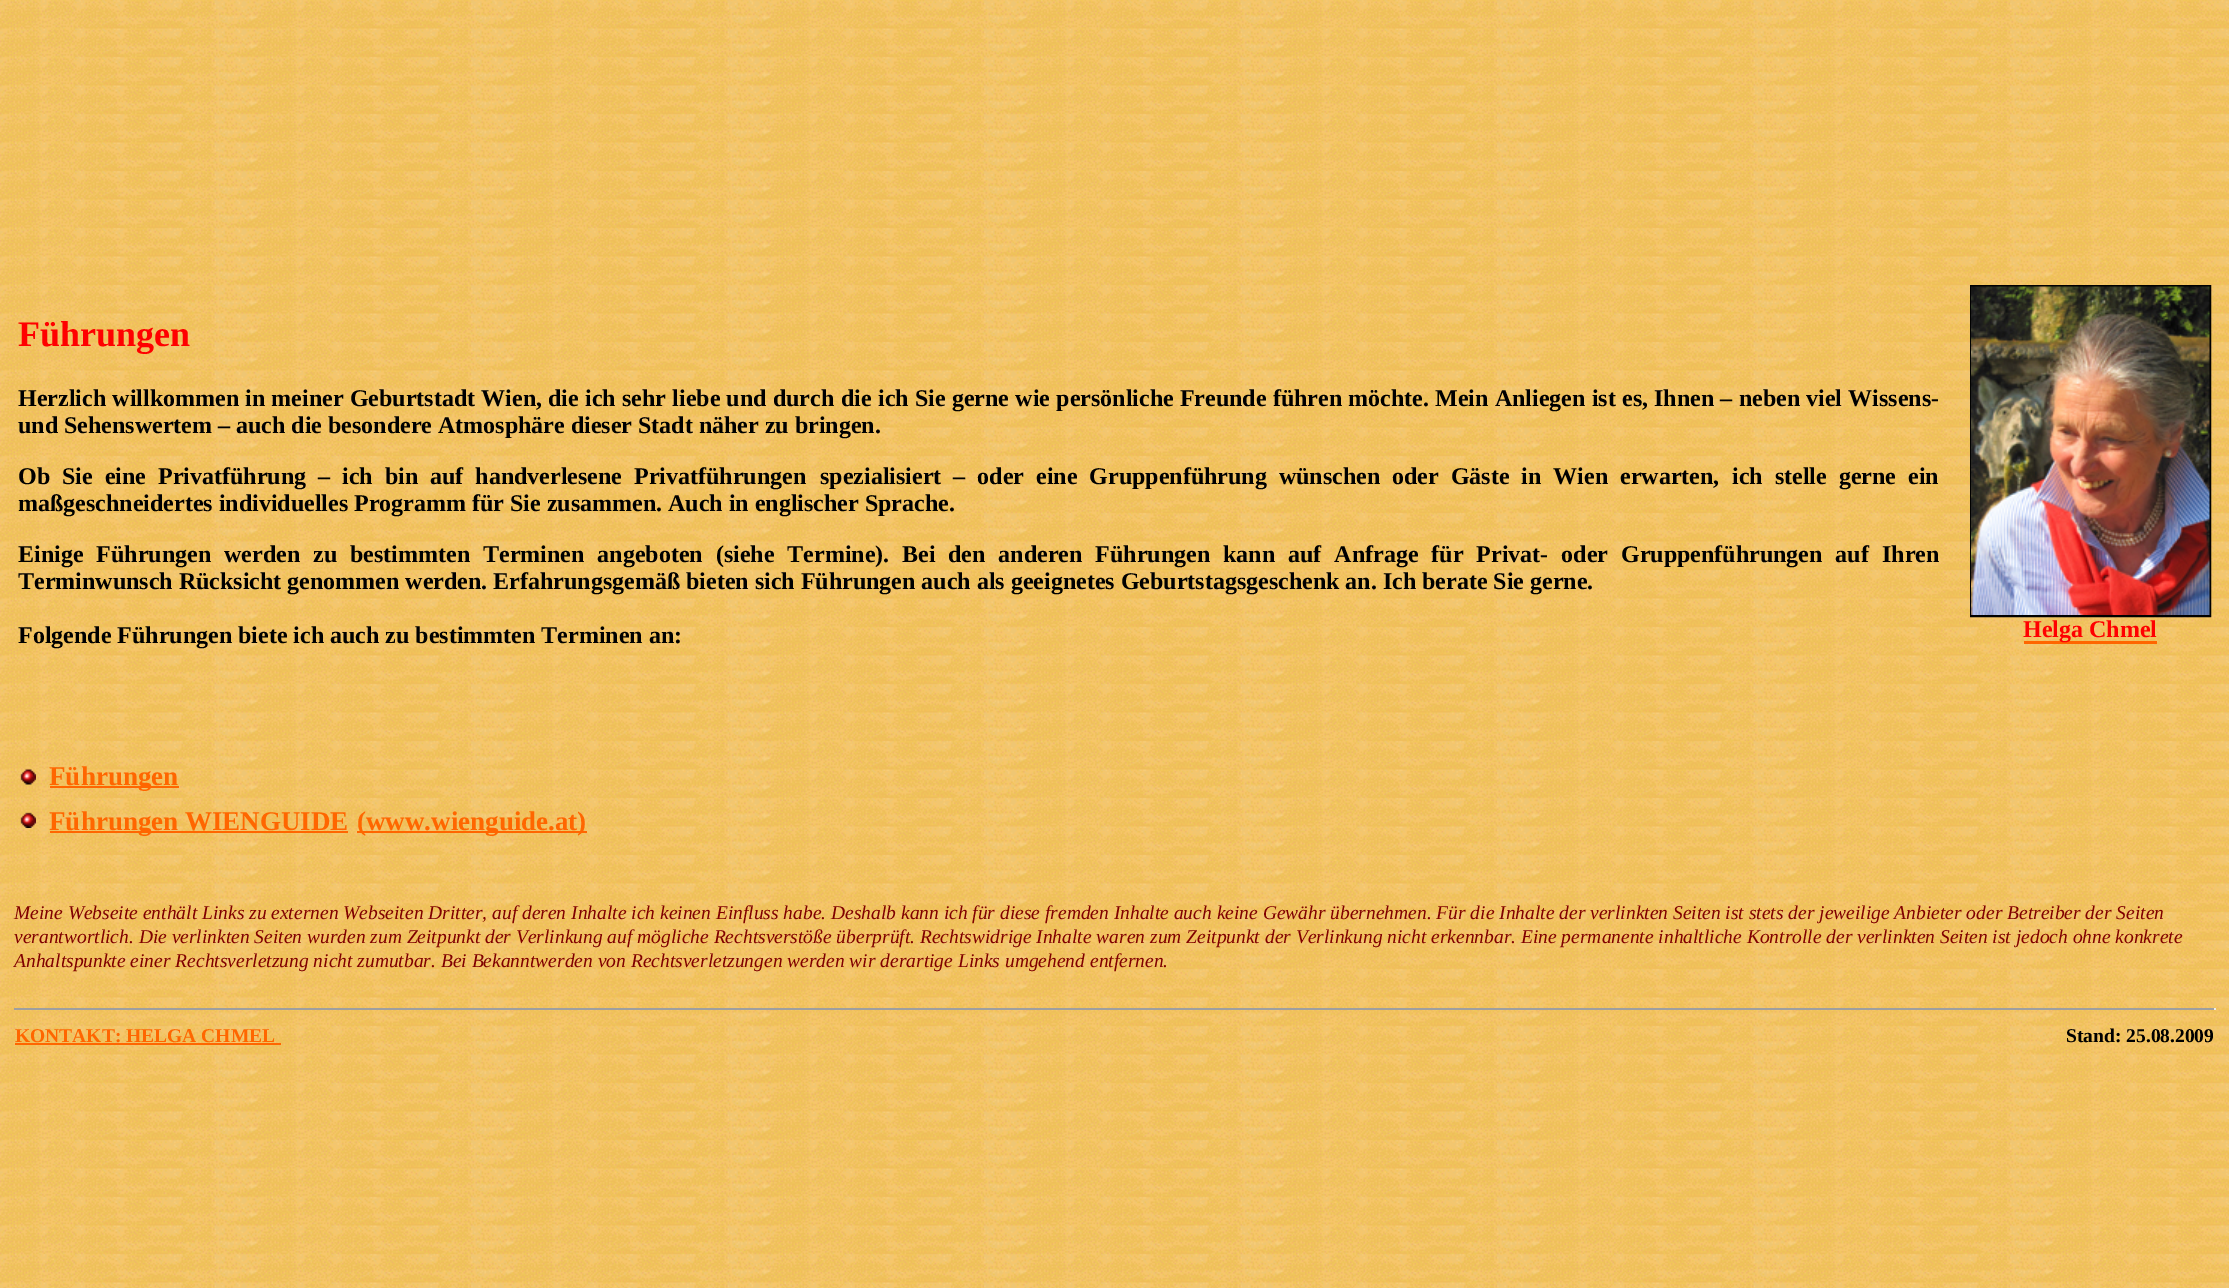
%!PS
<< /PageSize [2229 1288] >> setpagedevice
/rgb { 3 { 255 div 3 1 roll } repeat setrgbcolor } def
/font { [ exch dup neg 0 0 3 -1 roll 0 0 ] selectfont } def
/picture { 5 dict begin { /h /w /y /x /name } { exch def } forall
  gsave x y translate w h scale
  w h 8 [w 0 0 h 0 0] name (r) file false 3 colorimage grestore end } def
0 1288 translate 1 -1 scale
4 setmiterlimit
255 204 102 rgb
0 0 2229 1288 rectfill
(img/1.rgb) 0 0 2229 1288 picture
0 0 0 rgb
2 setlinewidth
1971 286 239 330 rectstroke
(img/2.rgb) 1971 286 239 329 picture
255 102 0 rgb
2024 641 133 3 rectfill
(img/3.rgb) 20 769 16 16 picture
50 786 129 2 rectfill
(img/4.rgb) 20 812 16 16 picture
[
  [50 831 298 2 255 102 0]
  [357 831 230 2 255 102 0]
  [14 1008 2202 2 159 159 159]
  [2214 1008 2 2 238 238 238]
  [15 1043 266 2 255 102 0]
] { aload pop rgb rectfill } forall
/LiberationSerif-Bold 36 font
255 0 0 rgb
18 346 moveto (Führungen) show
/LiberationSerif-Bold 24 font
0 0 0 rgb
18 406 moveto 0.25 0 32 (Herzlich willkommen in meiner Geburtstadt Wien, die ich sehr liebe und durch) widthshow
841 406 moveto 0.25 0 32 (die ich Sie gerne wie persönliche Freunde führen möchte. Mein Anliegen ist es,) widthshow
1654 406 moveto 0.25 0 32 (Ihnen – neben viel Wissens-) widthshow
18 433 moveto (und Sehenswertem – auch die besondere Atmosphäre dieser Stadt näher zu bringen.) show
18 484 moveto 6 0 32 (Ob Sie eine Privatführung – ich bin auf handverlesene Privatführungen) widthshow
820 484 moveto 6 0 32 (spezialisiert – oder eine Gruppenführung wünschen oder Gäste in Wien erwarten,) widthshow
1732 484 moveto 6 0 32 (ich stelle gerne ein) widthshow
18 511 moveto (maßgeschneidertes individuelles Programm für Sie zusammen. Auch in englischer Sprache.) show
18 562 moveto 7 0 32 (Einige Führungen werden zu bestimmten Terminen angeboten \(siehe Termine\). Bei) widthshow
948 562 moveto 7 0 32 (den anderen Führungen kann auf Anfrage für Privat- oder Gruppenführungen auf) widthshow
[
  [(Ihren) 1882 562]
  [(Terminwunsch Rücksicht genommen werden. Erfahrungsgemäß bieten sich Führungen auch als geeignetes Geburtstagsgeschenk an. Ich berate Sie gerne.) 18 589]
  [(Folgende Führungen biete ich auch zu bestimmten Terminen an:) 18 643]
] { aload pop moveto show } forall
255 0 0 rgb
2023 637 moveto (Helga Chmel) show
/LiberationSerif-Bold 27 font
255 102 0 rgb
[
  [(Führungen) 49 785]
  [(Führungen WIENGUIDE) 49 830]
  [(\(www.wienguide.at\)) 357 830]
] { aload pop moveto show } forall
/LiberationSerif-Italic 19.5 font
128 0 0 rgb
[
  [(Meine Webseite enthält Links zu externen Webseiten Dritter, auf deren Inhalte ich keinen Einfluss habe. Deshalb kann ich für diese fremden Inhalte auch keine Gewähr übernehmen. Für die Inhalte der verlinkten Seiten ist stets der jeweilige Anbieter oder Betreiber der Seiten) 14 919]
  [(verantwortlich. Die verlinkten Seiten wurden zum Zeitpunkt der Verlinkung auf mögliche Rechtsverstöße überprüft. Rechtswidrige Inhalte waren zum Zeitpunkt der Verlinkung nicht erkennbar. Eine permanente inhaltliche Kontrolle der verlinkten Seiten ist jedoch ohne konkrete) 14 943]
  [(Anhaltspunkte einer Rechtsverletzung nicht zumutbar. Bei Bekanntwerden von Rechtsverletzungen werden wir derartige Links umgehend entfernen.) 14 967]
] { aload pop moveto show } forall
/LiberationSerif-Bold 19.5 font
255 102 0 rgb
15 1042 moveto (KONTAKT: HELGA CHMEL) show
0 0 0 rgb
2066 1042 moveto (Stand: 25.08.2009) show
showpage
